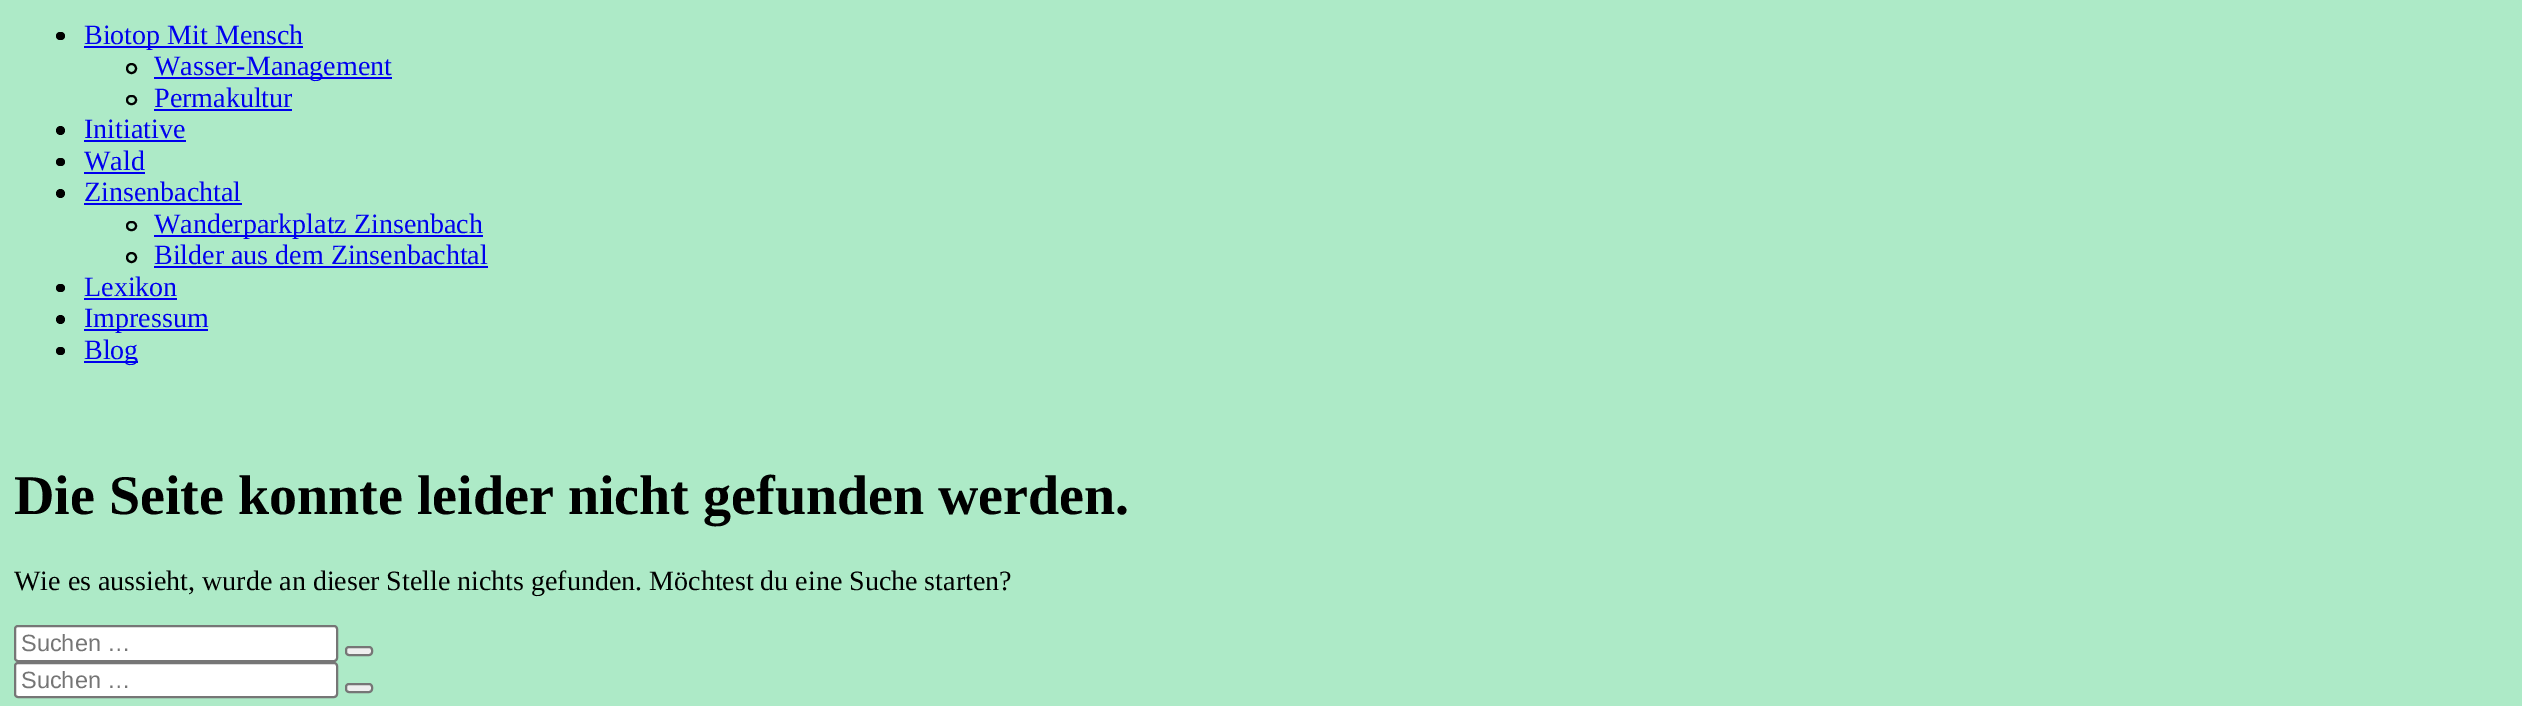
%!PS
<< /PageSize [2522 706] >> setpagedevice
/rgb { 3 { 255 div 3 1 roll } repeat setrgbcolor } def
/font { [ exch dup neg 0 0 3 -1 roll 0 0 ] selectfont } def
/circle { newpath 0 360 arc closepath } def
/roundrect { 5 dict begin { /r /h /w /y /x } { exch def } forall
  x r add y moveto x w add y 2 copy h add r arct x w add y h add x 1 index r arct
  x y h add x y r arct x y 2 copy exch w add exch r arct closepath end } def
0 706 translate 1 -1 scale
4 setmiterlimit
173 234 199 rgb
0 0 2522 706 rectfill
0 0 0 rgb
56 32 9 8 4 roundrect fill
0 0 238 rgb
84 46 219 2 rectfill
0 0 0 rgb
2 setlinewidth
131.5 68.5 4.5 circle stroke
0 0 238 rgb
154 77 238 2 rectfill
0 0 0 rgb
127 96 9 8 4 roundrect stroke
0 0 238 rgb
154 109 138 2 rectfill
0 0 0 rgb
60.5 130.5 4.5 circle fill
0 0 238 rgb
84 140 102 2 rectfill
0 0 0 rgb
56 158 9 8 4 roundrect fill
0 0 238 rgb
84 172 61 2 rectfill
0 0 0 rgb
60.5 193.5 4.5 circle fill
0 0 238 rgb
84 203 158 2 rectfill
0 0 0 rgb
127 222 9 8 4 roundrect stroke
0 0 238 rgb
154 235 329 2 rectfill
0 0 0 rgb
131.5 257.5 4.5 circle stroke
0 0 238 rgb
154 266 334 2 rectfill
0 0 0 rgb
56 284 9 8 4 roundrect fill
0 0 238 rgb
84 298 93 2 rectfill
0 0 0 rgb
60.5 319.5 4.5 circle fill
0 0 238 rgb
84 329 124 2 rectfill
0 0 0 rgb
56 347 9 8 4 roundrect fill
0 0 238 rgb
84 361 54 2 rectfill
255 255 255 rgb
15 626 322 35 3 roundrect gsave fill grestore
118 118 118 rgb
stroke
239 239 239 rgb
346 647 26 8 3 roundrect gsave fill grestore
118 118 118 rgb
stroke
255 255 255 rgb
15 663 322 34 3 roundrect gsave fill grestore
118 118 118 rgb
stroke
239 239 239 rgb
346 684 26 8 3 roundrect gsave fill grestore
118 118 118 rgb
stroke
/LiberationSerif-Regular 28 font
0 0 238 rgb
[
  [(Biotop Mit Mensch) 84 44]
  [(Wasser-Management) 154 75]
  [(Permakultur) 154 107]
  [(Initiative) 84 138]
  [(Wald) 84 170]
  [(Zinsenbachtal) 84 201]
  [(Wanderparkplatz Zinsenbach) 154 233]
  [(Bilder aus dem Zinsenbachtal) 154 264]
  [(Lexikon) 84 296]
  [(Impressum) 84 327]
  [(Blog) 84 359]
] { aload pop moveto show } forall
/LiberationSerif-Bold 56 font
0 0 0 rgb
14 514 moveto (Die Seite konnte leider nicht gefunden werden.) show
/LiberationSerif-Regular 28 font
14 590 moveto (Wie es aussieht, wurde an dieser Stelle nichts gefunden. Möchtest du eine Suche starten?) show
/LiberationSans-Regular 23.5 font
117 117 117 rgb
21 651 moveto (Suchen …) show
21 688 moveto (Suchen …) show
showpage
